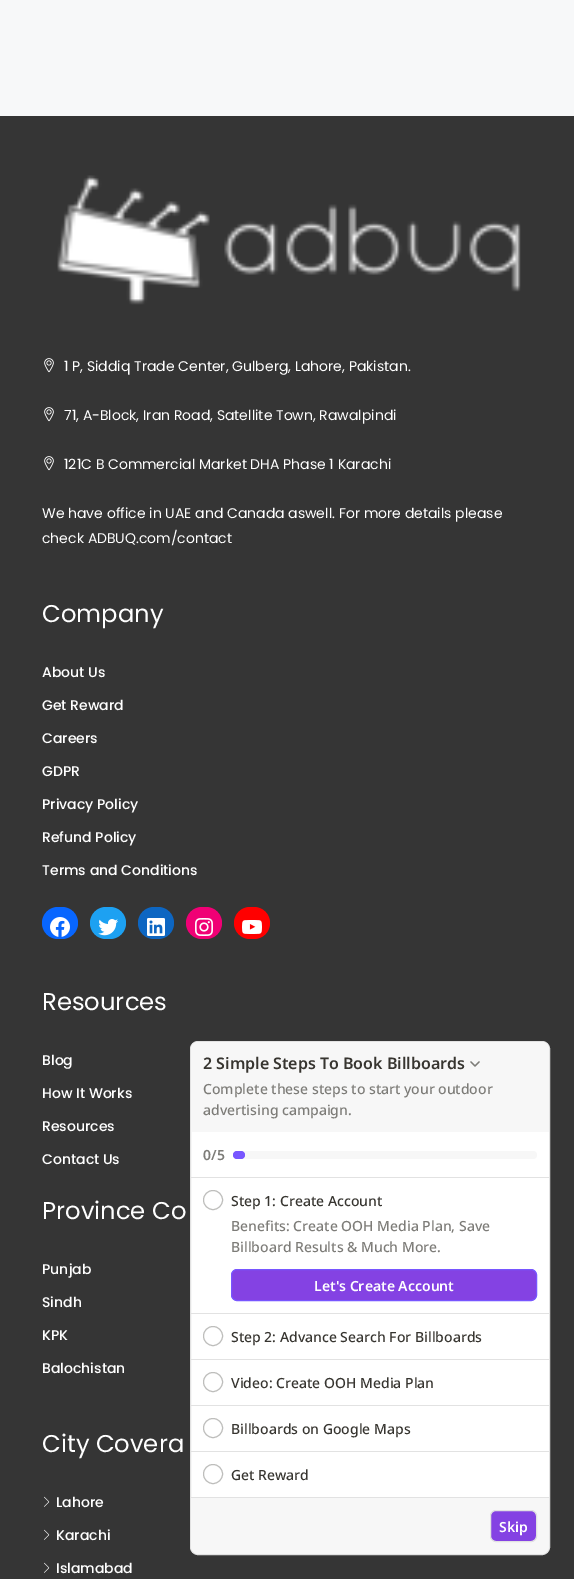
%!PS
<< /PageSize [574 1579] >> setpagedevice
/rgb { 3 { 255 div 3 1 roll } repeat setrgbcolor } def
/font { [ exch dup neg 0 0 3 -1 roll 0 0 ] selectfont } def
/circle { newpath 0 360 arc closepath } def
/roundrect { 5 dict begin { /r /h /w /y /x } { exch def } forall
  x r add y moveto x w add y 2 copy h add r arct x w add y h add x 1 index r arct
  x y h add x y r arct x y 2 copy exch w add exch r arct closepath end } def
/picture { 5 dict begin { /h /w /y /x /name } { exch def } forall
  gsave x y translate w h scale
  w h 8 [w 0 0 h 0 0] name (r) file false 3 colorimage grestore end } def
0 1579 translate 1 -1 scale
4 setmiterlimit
247 248 249 rgb
0 0 574 1579 rectfill
53 53 53 rgb
0 116 574 1463 rectfill
(img/1.rgb) 57 175 464 130 picture
(img/2.rgb) 44 358 10 15 picture
(img/2.rgb) 44 407 10 15 picture
(img/2.rgb) 44 456 10 15 picture
8 102 255 rgb
42 907 36 32 16 roundrect fill
(img/3.rgb) 50 917 20 20 picture
29 161 242 rgb
90 907 36 32 16 roundrect fill
(img/4.rgb) 98 919 20 17 picture
13 102 194 rgb
138 907 36 32 16 roundrect fill
(img/5.rgb) 147 918 18 18 picture
240 0 117 rgb
186 907 36 32 16 roundrect fill
(img/6.rgb) 195 918 18 18 picture
255 0 0 rgb
234 907 36 32 16 roundrect fill
(img/7.rgb) 242 920 20 14 picture
(img/8.rgb) 44 1496 6 11 picture
(img/8.rgb) 44 1529 6 11 picture
(img/8.rgb) 44 1562 6 11 picture
255 255 255 rgb
190.5 1041.5 359 513 7.5 roundrect gsave fill grestore
226 226 226 rgb
stroke
247 247 247 rgb
198 1042 moveto 542 1042 lineto 546 1042 549 1045 549 1049 curveto 549 1132 lineto 191 1132 lineto 191 1049 lineto 191 1045 194 1042 198 1042 curveto closepath fill
125 124 120 rgb
1.3 setlinewidth
1 setlinecap
1 setlinejoin
471 1062 moveto 475 1066 lineto 479 1062 lineto stroke
247 247 247 rgb
233 1151 304 8 4 roundrect fill
120 86 255 rgb
233 1151 12 8 4 roundrect fill
226 226 226 rgb
191 1177 358 1 rectfill
190 190 188 rgb
1 setlinewidth
0 setlinecap
0 setlinejoin
213 1200 9.5 circle stroke
132 66 227 rgb
231.5 1269.5 305 31 5.5 roundrect gsave fill grestore
120 86 255 rgb
stroke
226 226 226 rgb
191 1313 358 1 rectfill
190 190 188 rgb
213 1336 9.5 circle stroke
226 226 226 rgb
191 1359 358 1 rectfill
190 190 188 rgb
213 1382 9.5 circle stroke
226 226 226 rgb
191 1405 358 1 rectfill
190 190 188 rgb
213 1428 9.5 circle stroke
226 226 226 rgb
191 1451 358 1 rectfill
190 190 188 rgb
213 1474 9.5 circle stroke
226 226 226 rgb
191 1497 358 1 rectfill
gsave
191 1042 358 512 7 roundrect clip newpath
247 247 247 rgb
191 1498 moveto 549 1498 lineto 549 1546 lineto 549 1550.5 545.5 1554 541 1554 curveto 199 1554 lineto 194.5 1554 191 1550.5 191 1546 curveto closepath fill
grestore
132 66 227 rgb
490.5 1510.5 46 31 5.5 roundrect gsave fill grestore
226 226 226 rgb
stroke
/Poppins-Regular 14 font
255 255 255 rgb
[
  [(1 P, Siddiq Trade Center, Gulberg, Lahore, Pakistan.) 64 371]
  [(71, A-Block, Iran Road, Satellite Town, Rawalpindi) 64 420]
  [(121C B Commercial Market DHA Phase 1 Karachi) 64 469]
  [(We have office in UAE and Canada aswell. For more details please) 42 518]
  [(check ADBUQ.com/contact) 42 543]
] { aload pop moveto show } forall
/Poppins-Regular 24.25 font
42 622 moveto (Company) show
/Poppins-Medium 14 font
[
  [(About Us) 42 677]
  [(Get Reward) 42 710]
  [(Careers) 42 743]
  [(GDPR) 42 776]
  [(Privacy Policy) 42 809]
  [(Refund Policy) 42 842]
  [(Terms and Conditions) 42 875]
] { aload pop moveto show } forall
/Poppins-Regular 24.25 font
42 1010 moveto (Resources) show
/Poppins-Medium 14 font
[
  [(Blog) 42 1065]
  [(How It Works) 42 1098]
  [(Resources) 42 1131]
  [(Contact Us) 42 1164]
] { aload pop moveto show } forall
/Poppins-Regular 24.25 font
42 1219 moveto (Province Co) show
/Poppins-Medium 14 font
[
  [(Punjab) 42 1274]
  [(Sindh) 42 1307]
  [(KPK) 42 1340]
  [(Balochistan) 42 1373]
] { aload pop moveto show } forall
/Poppins-Regular 24.25 font
42 1452 moveto (City Covera) show
/Poppins-Medium 14 font
[
  [(Lahore) 56 1507]
  [(Karachi) 56 1540]
  [(Islamabad) 56 1573]
] { aload pop moveto show } forall
/NotoSans-SemiBold 16 font
55 53 48 rgb
203 1069 moveto (2 Simple Steps To Book Billboards) show
/NotoSans-Medium 14 font
125 124 120 rgb
203 1094 moveto (Complete these steps to start your outdoor) show
203 1115 moveto (advertising campaign.) show
/NotoSans-SemiBold 14 font
203 1160 moveto (0/5) show
/NotoSans-Medium 14 font
55 53 48 rgb
231 1206 moveto (Step 1: Create Account) show
125 124 120 rgb
231 1231 moveto (Benefits: Create OOH Media Plan, Save) show
231 1252 moveto (Billboard Results & Much More.) show
/NotoSans-SemiBold 14 font
255 255 255 rgb
314 1291 moveto (Let's Create Account) show
/NotoSans-Medium 14 font
55 53 48 rgb
[
  [(Step 2: Advance Search For Billboards) 231 1342]
  [(Video: Create OOH Media Plan) 231 1388]
  [(Billboards on Google Maps) 231 1434]
  [(Get Reward) 231 1480]
] { aload pop moveto show } forall
/NotoSans-SemiBold 14 font
255 255 255 rgb
499 1532 moveto (Skip) show
showpage
